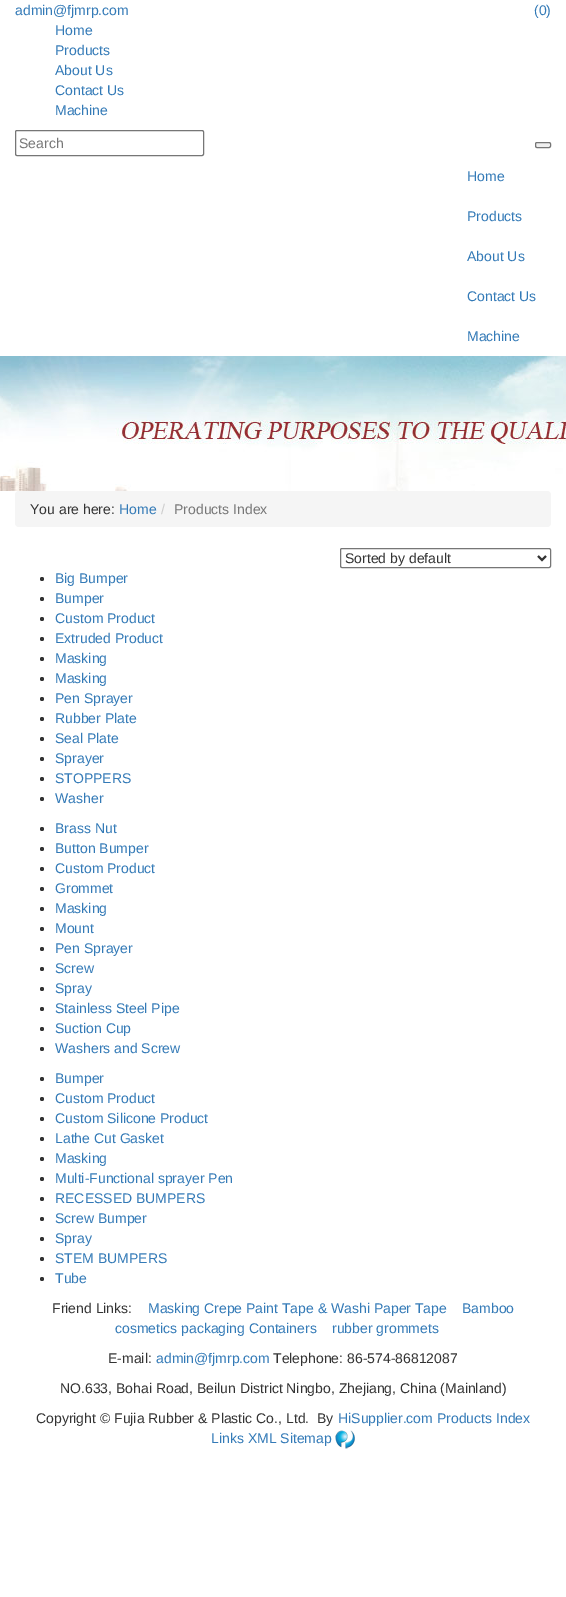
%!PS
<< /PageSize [566 1597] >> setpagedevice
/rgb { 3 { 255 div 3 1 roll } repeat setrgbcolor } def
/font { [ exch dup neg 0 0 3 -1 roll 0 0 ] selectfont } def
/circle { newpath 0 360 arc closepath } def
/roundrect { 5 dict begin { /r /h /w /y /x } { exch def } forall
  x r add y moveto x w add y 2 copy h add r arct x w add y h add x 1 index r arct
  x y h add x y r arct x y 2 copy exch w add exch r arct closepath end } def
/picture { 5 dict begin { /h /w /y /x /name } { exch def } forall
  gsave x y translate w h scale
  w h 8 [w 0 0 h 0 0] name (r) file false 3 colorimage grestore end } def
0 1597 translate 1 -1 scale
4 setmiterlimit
255 255 255 rgb
0 0 566 1597 rectfill
118 118 118 rgb
15.5 130.5 188 25 1.5 roundrect stroke
239 239 239 rgb
535.5 142.5 15 5 1.5 roundrect gsave fill grestore
118 118 118 rgb
stroke
(img/1.rgb) 0 356 566 135 picture
245 245 245 rgb
15 491 536 36 4 roundrect fill
118 118 118 rgb
340.5 548.5 210 19 1.5 roundrect stroke
51 51 51 rgb
2 setlinewidth
538 556 moveto 542 560 lineto 546 556 lineto stroke
42 579 2 circle fill
42 599 2 circle fill
42 619 2 circle fill
42 639 2 circle fill
42 659 2 circle fill
42 679 2 circle fill
42 699 2 circle fill
42 719 2 circle fill
42 739 2 circle fill
42 759 2 circle fill
42 779 2 circle fill
42 799 2 circle fill
42 829 2 circle fill
42 849 2 circle fill
42 869 2 circle fill
42 889 2 circle fill
42 909 2 circle fill
42 929 2 circle fill
42 949 2 circle fill
42 969 2 circle fill
42 989 2 circle fill
42 1009 2 circle fill
42 1029 2 circle fill
42 1049 2 circle fill
42 1079 2 circle fill
42 1099 2 circle fill
42 1119 2 circle fill
42 1139 2 circle fill
42 1159 2 circle fill
42 1179 2 circle fill
42 1199 2 circle fill
42 1219 2 circle fill
42 1239 2 circle fill
42 1259 2 circle fill
42 1279 2 circle fill
(img/2.rgb) 335 1430 20 19 picture
/LiberationSans-Regular 14 font
51 122 183 rgb
[
  [(admin@fjmrp.com) 15 15]
  [(\(0\)) 534 15]
  [(Home) 55 35]
  [(Products) 55 55]
  [(About Us) 55 75]
  [(Contact Us) 55 95]
  [(Machine) 55 115]
] { aload pop moveto show } forall
119 119 119 rgb
19 148 moveto (Search) show
51 122 183 rgb
[
  [(Home) 467 181]
  [(Products) 467 221]
  [(About Us) 467 261]
  [(Contact Us) 467 301]
  [(Machine) 467 341]
] { aload pop moveto show } forall
51 51 51 rgb
30 514 moveto (You are here:) show
51 122 183 rgb
119 514 moveto (Home) show
204 204 204 rgb
161 514 moveto (/) show
119 119 119 rgb
174 514 moveto (Products Index) show
51 51 51 rgb
345 563 moveto (Sorted by default) show
51 122 183 rgb
[
  [(Big Bumper) 55 583]
  [(Bumper) 55 603]
  [(Custom Product) 55 623]
  [(Extruded Product) 55 643]
  [(Masking) 55 663]
  [(Masking) 55 683]
  [(Pen Sprayer) 55 703]
  [(Rubber Plate) 55 723]
  [(Seal Plate) 55 743]
  [(Sprayer) 55 763]
  [(STOPPERS) 55 783]
  [(Washer) 55 803]
  [(Brass Nut) 55 833]
  [(Button Bumper) 55 853]
  [(Custom Product) 55 873]
  [(Grommet) 55 893]
  [(Masking) 55 913]
  [(Mount) 55 933]
  [(Pen Sprayer) 55 953]
  [(Screw) 55 973]
  [(Spray) 55 993]
  [(Stainless Steel Pipe) 55 1013]
  [(Suction Cup) 55 1033]
  [(Washers and Screw) 55 1053]
  [(Bumper) 55 1083]
  [(Custom Product) 55 1103]
  [(Custom Silicone Product) 55 1123]
  [(Lathe Cut Gasket) 55 1143]
  [(Masking) 55 1163]
  [(Multi-Functional sprayer Pen) 55 1183]
  [(RECESSED BUMPERS) 55 1203]
  [(Screw Bumper) 55 1223]
  [(Spray) 55 1243]
  [(STEM BUMPERS) 55 1263]
  [(Tube) 55 1283]
] { aload pop moveto show } forall
51 51 51 rgb
52 1313 moveto (Friend Links:) show
51 122 183 rgb
[
  [(Masking Crepe Paint Tape & Washi Paper Tape) 148 1313]
  [(Bamboo) 462 1313]
  [(cosmetics packaging Containers) 115 1333]
  [(rubber grommets) 332 1333]
] { aload pop moveto show } forall
51 51 51 rgb
108 1363 moveto (E-mail:) show
51 122 183 rgb
156 1363 moveto (admin@fjmrp.com) show
51 51 51 rgb
[
  [(Telephone: 86-574-86812087) 273 1363]
  [(NO.633, Bohai Road, Beilun District Ningbo, Zhejiang, China \(Mainland\)) 60 1393]
  [(Copyright © Fujia Rubber & Plastic Co., Ltd.) 36 1423]
  [(By) 317 1423]
] { aload pop moveto show } forall
51 122 183 rgb
338 1423 moveto (HiSupplier.com Products Index) show
211 1443 moveto (Links XML Sitemap) show
showpage
